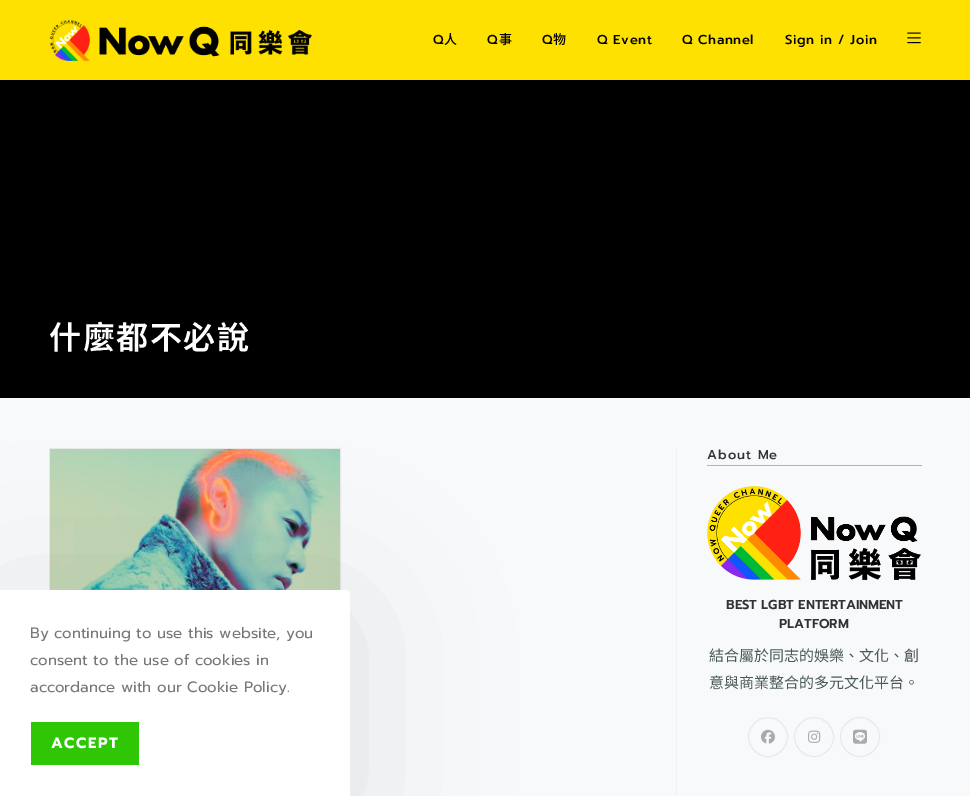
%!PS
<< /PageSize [970 796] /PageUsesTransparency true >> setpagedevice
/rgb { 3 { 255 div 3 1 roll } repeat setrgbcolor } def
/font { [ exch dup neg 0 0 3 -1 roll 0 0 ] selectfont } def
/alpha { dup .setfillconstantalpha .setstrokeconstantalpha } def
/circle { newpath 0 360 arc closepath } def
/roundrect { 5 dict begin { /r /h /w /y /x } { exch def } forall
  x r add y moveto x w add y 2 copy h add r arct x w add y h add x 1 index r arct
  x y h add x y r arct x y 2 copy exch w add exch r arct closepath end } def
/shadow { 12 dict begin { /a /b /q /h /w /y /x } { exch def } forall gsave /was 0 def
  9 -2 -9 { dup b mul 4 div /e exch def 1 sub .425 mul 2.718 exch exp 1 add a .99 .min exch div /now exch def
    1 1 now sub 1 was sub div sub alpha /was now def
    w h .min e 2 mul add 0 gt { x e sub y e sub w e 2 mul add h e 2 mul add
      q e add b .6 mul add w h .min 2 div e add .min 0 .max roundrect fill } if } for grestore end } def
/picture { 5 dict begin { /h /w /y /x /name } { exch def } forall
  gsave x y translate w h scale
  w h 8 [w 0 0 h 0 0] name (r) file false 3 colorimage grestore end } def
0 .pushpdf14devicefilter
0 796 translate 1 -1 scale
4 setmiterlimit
248 249 250 rgb
0 0 970 796 rectfill
255 225 0 rgb
0 0 970 80 rectfill
(img/1.rgb) 49 19 263 42 picture
(img/2.rgb) 907 32 14 12 picture
0 0 0 rgb
0 80 970 318 rectfill
241 241 241 rgb
676 448 1 348 rectfill
233 233 233 rgb
49.5 448.5 291 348 rectstroke
(img/3.rgb) 50 449 290 141 picture
173 181 189 rgb
707 465 215 1 rectfill
(img/4.rgb) 707 486 214 94 picture
233 233 233 rgb
768 737 19.5 circle stroke
(img/5.rgb) 761 729 14 15 picture
814 737 19.5 circle stroke
(img/6.rgb) 808 730 13 13 picture
860 737 19.5 circle stroke
(img/7.rgb) 853 729 14 15 picture
0 0 0 rgb
0 610 350 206 4 75 0.1 shadow
255 255 255 rgb
0 590 moveto 346 590 lineto 348 590 350 592 350 594 curveto 350 796 lineto 0 796 lineto closepath fill
46 198 5 rgb
31 722 108 43 rectfill
/Prompt-Medium 13 font
0 0 0 rgb
433 44 moveto 0.6 0 (Q) ashow
/NotoSansTC-Medium 13 font
444 44 moveto 0.6 0 (人) ashow
/Prompt-Medium 13 font
487 44 moveto 0.6 0 (Q) ashow
/NotoSansTC-Medium 13 font
499 44 moveto 0.6 0 (事) ashow
/Prompt-Medium 13 font
542 44 moveto 0.6 0 (Q) ashow
/NotoSansTC-Medium 13 font
553 44 moveto 0.6 0 (物) ashow
/Prompt-Medium 13 font
597 44 moveto 0.6 0 (Q Event) ashow
682 44 moveto 0.6 0 (Q Channel) ashow
785 44 moveto 0.6 0 (Sign in / Join) ashow
/NotoSansTC-SemiBold 32 font
255 255 255 rgb
49 349 moveto 1.5 0 (什麼都不必說) ashow
/Prompt-Medium 13 font
51 51 51 rgb
707 459 moveto 1 0 (About Me) ashow
/Prompt-SemiBold 13 font
726 609 moveto (BEST LGBT ENTERTAINMENT) show
779 628 moveto (PLATFORM) show
/NotoSansTC-Regular 15 font
73 89 87 rgb
709 661 moveto (結合屬於同志的娛樂、文化、創) show
709 688 moveto (意與商業整合的多元文化平台。) show
/Prompt-Regular 15 font
119 119 119 rgb
[
  [(By continuing to use this website, you) 30 638]
  [(consent to the use of cookies in) 30 665]
  [(accordance with our Cookie Policy.) 30 692]
] { aload pop moveto show } forall
/Prompt-Bold 15 font
255 255 255 rgb
51 748 moveto 1.5 0 (ACCEPT) ashow
.poppdf14devicefilter showpage
